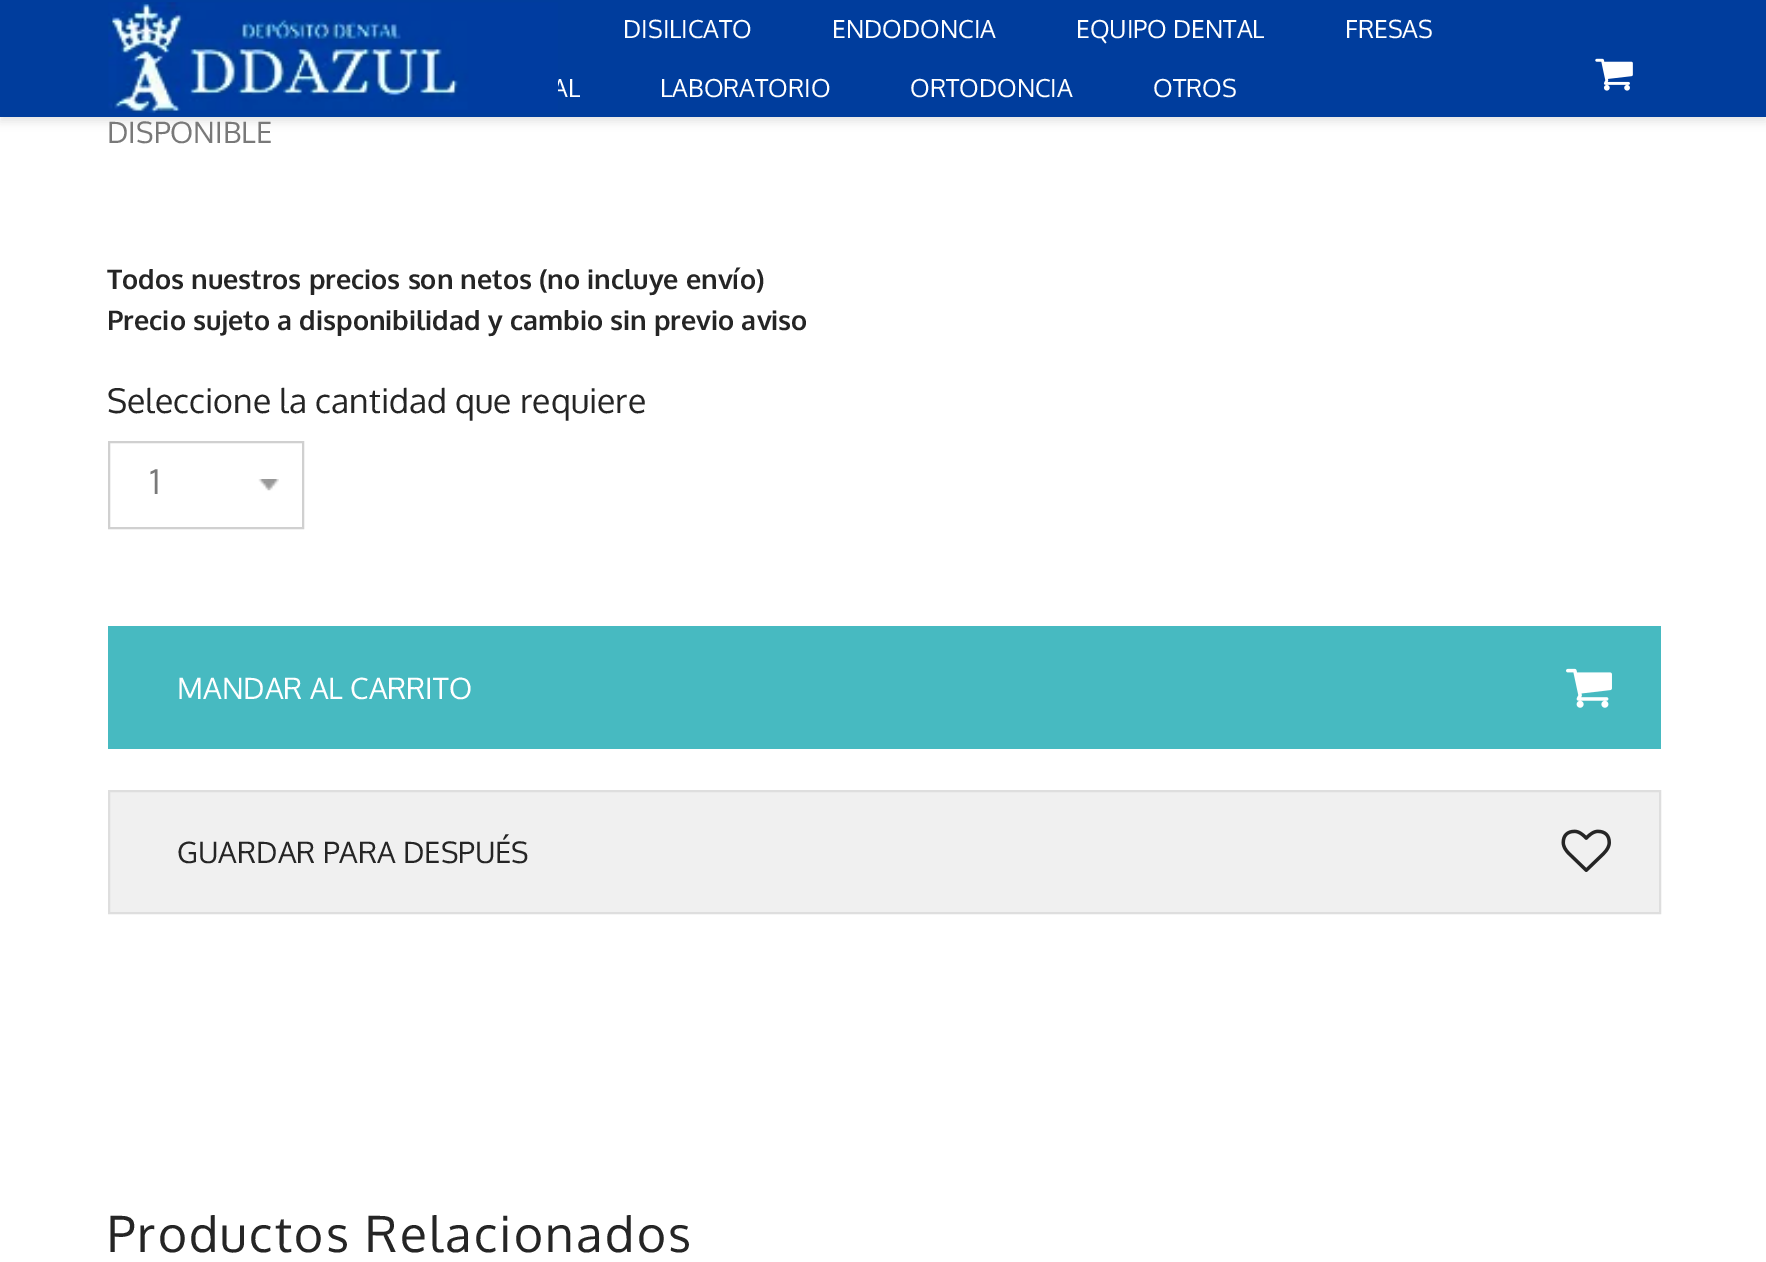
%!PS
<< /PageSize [1766 1262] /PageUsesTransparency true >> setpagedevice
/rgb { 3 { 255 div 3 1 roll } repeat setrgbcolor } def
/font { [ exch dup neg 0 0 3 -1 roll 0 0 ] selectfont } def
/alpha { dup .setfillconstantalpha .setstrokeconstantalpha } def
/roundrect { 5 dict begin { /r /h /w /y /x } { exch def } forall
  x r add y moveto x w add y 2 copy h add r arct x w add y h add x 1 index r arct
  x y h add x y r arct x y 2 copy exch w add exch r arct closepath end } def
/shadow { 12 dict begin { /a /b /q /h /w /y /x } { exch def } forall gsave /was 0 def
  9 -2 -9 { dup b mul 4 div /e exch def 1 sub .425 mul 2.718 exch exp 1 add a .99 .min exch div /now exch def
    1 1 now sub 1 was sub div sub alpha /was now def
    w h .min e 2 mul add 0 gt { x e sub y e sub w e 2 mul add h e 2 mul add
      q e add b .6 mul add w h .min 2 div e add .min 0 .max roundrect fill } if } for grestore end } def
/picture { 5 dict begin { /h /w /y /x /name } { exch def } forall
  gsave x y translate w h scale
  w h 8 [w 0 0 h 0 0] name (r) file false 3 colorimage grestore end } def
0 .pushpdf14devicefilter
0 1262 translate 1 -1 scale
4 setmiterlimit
255 255 255 rgb
0 0 1766 1262 rectfill
0 0 0 rgb
0 5 1766 117 0 4.5 0.1 shadow
0 61 157 rgb
0 0 1766 117 rectfill
(img/2.rgb) 1595 58 38 33 picture
208 208 208 rgb
2 setlinewidth
109 442 194 86 rectstroke
(img/3.rgb) 258 479 21 12 picture
71 186 193 rgb
108 626 1553 123 rectfill
(img/4.rgb) 1566 668 46 40 picture
240 240 240 rgb
109 791 moveto 1660 791 lineto 1660 913 lineto 109 913 lineto closepath gsave fill grestore
222 222 222 rgb
stroke
(img/5.rgb) 1561 829 50 43 picture
/Oxygen-Regular 24.75 font
255 255 255 rgb
[
  [(DISILICATO) 623 38]
  [(ENDODONCIA) 832 38]
  [(EQUIPO DENTAL) 1076 38]
  [(FRESAS) 1345 38]
  [(AL) 552 97]
] { aload pop moveto show } forall
(img/1.rgb) 108 2 450 111 picture
[
  [(LABORATORIO) 660 97]
  [(ORTODONCIA) 910 97]
  [(OTROS) 1153 97]
] { aload pop moveto show } forall
/Oxygen-Regular 29.25 font
121 121 121 rgb
107 143 moveto (DISPONIBLE) show
/Oxygen-Bold 27 font
37 37 37 rgb
107 289 moveto (Todos nuestros precios son netos \(no incluye envío\)) show
107 330 moveto (Precio sujeto a disponibilidad y cambio sin previo aviso) show
/Oxygen-Regular 33.75 font
107 413 moveto (Seleccione la cantidad que requiere) show
121 121 121 rgb
150 494 moveto (1) show
/Oxygen-Regular 29.25 font
255 255 255 rgb
177 699 moveto (MANDAR AL CARRITO) show
37 37 37 rgb
177 863 moveto (GUARDAR PARA DESPUÉS) show
/Oxygen-Regular 49.5 font
107 1252 moveto 2.25 0 (Productos Relacionados) ashow
.poppdf14devicefilter showpage
